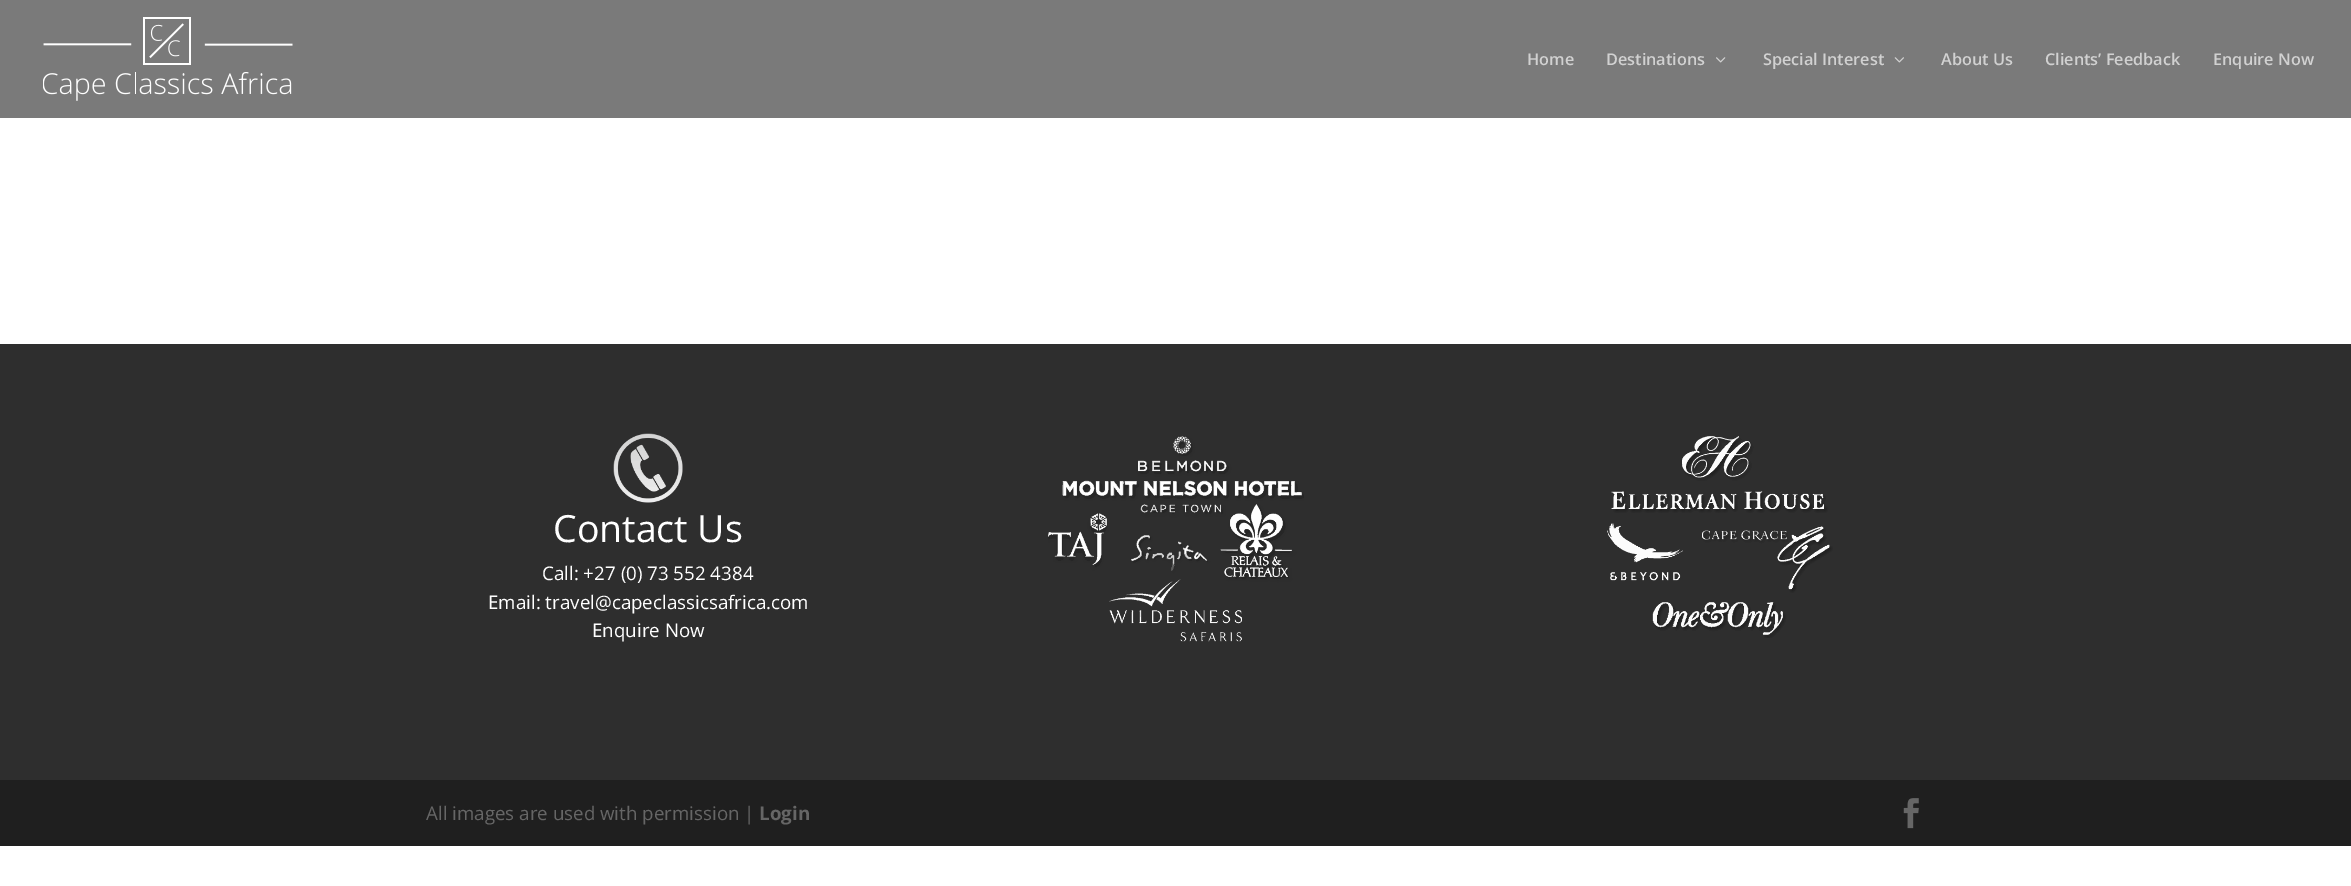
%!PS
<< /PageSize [2351 886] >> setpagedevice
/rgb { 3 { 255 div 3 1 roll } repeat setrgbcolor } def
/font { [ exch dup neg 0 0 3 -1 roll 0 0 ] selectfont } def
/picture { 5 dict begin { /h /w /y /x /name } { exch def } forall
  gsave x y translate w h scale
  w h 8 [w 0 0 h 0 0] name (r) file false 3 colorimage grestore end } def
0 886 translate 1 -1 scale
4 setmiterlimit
255 255 255 rgb
0 0 2351 886 rectfill
122 122 122 rgb
0 0 2351 118 rectfill
(img/1.rgb) 43 17 250 84 picture
(img/2.rgb) 1716 57 10 6 picture
(img/3.rgb) 1894 57 10 6 picture
46 46 46 rgb
0 344 2351 436 rectfill
(img/4.rgb) 613 433 70 70 picture
(img/5.rgb) 1048 436 256 206 picture
(img/6.rgb) 1607 436 226 202 picture
31 31 31 rgb
0 780 2351 66 rectfill
(img/7.rgb) 1903 798 16 31 picture
/OpenSans-SemiBold 16.25 font
209 209 209 rgb
[
  [(Home) 1527 65]
  [(Destinations) 1606 65]
  [(Special Interest) 1763 65]
  [(About Us) 1941 65]
  [(Clients’ Feedback) 2045 65]
  [(Enquire Now) 2213 65]
] { aload pop moveto show } forall
/OpenSans-Regular 37.5 font
255 255 255 rgb
553 542 moveto (Contact Us) show
/OpenSans-Regular 18.75 font
[
  [(Call: +27 \(0\) 73 552 4384) 542 580]
  [(Email: travel@capeclassicsafrica.com) 488 609]
  [(Enquire Now) 592 637]
] { aload pop moveto show } forall
102 102 102 rgb
426 820 moveto (All images are used with permission |) show
/OpenSans-Bold 18.75 font
759 820 moveto (Login) show
showpage
